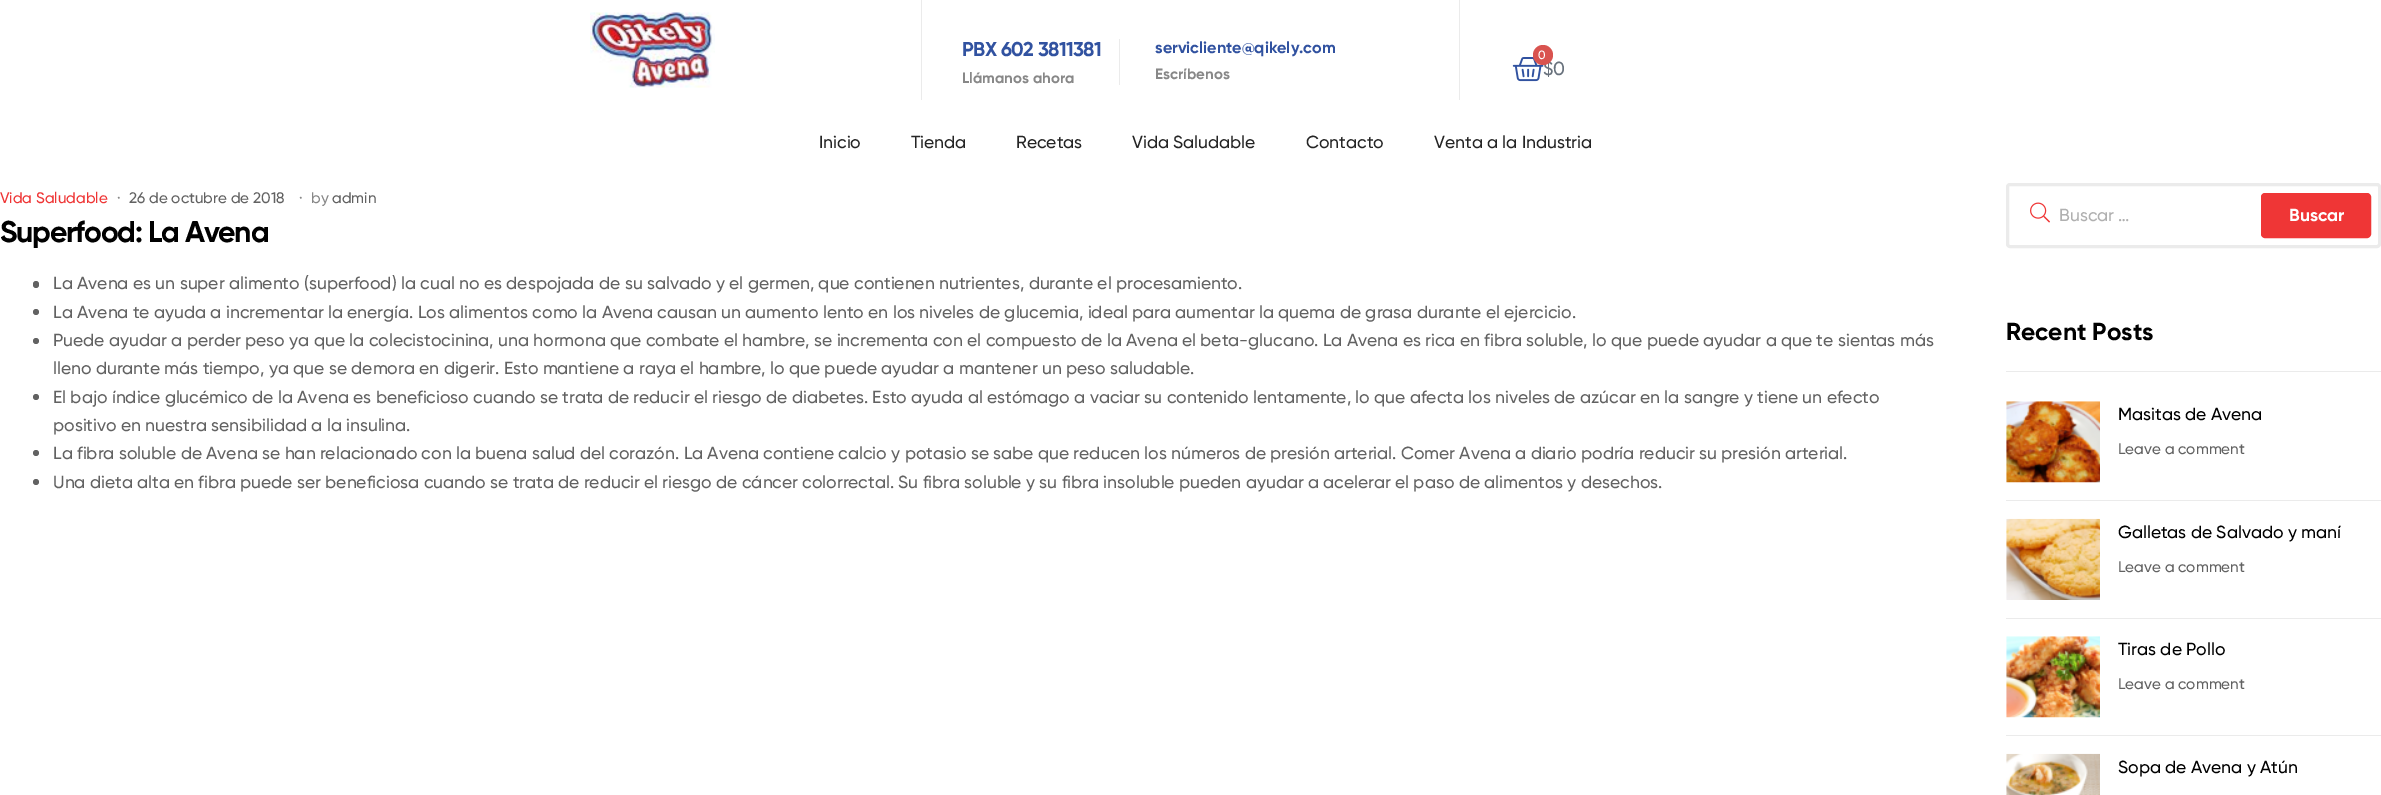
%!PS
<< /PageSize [2381 795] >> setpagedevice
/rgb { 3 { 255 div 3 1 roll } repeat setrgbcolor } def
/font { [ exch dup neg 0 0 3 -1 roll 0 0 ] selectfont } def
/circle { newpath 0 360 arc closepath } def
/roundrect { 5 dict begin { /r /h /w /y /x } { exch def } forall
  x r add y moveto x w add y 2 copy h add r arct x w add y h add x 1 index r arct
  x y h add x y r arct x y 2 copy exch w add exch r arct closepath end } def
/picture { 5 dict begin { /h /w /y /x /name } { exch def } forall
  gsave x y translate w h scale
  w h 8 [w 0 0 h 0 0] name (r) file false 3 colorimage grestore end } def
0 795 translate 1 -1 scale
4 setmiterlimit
255 255 255 rgb
0 0 2381 795 rectfill
(img/1.rgb) 590 12 125 76 picture
[
  [921 0 1 100 235 235 235]
  [1119 39 1 46 235 235 235]
  [1459 0 1 100 235 235 235]
] { aload pop rgb rectfill } forall
(img/2.rgb) 1512 57 32 25 picture
98 98 98 rgb
33 281 6 7 3 roundrect fill
36 312 3 circle fill
36 341 3 circle fill
36 397 3 circle fill
36 453 3 circle fill
36 482 3 circle fill
235 235 235 rgb
3 setlinewidth
2007.5 184.5 372 62 2.5 roundrect stroke
(img/3.rgb) 2030 202 20 21 picture
239 54 54 rgb
2262.5 194.5 107 42 2.5 roundrect gsave fill grestore
stroke
235 235 235 rgb
2006 371 375 1 rectfill
2006 500 375 1 rectfill
(img/4.rgb) 2006 401 94 82 picture
2006 618 375 1 rectfill
(img/5.rgb) 2006 518 94 82 picture
2006 735 375 1 rectfill
(img/6.rgb) 2006 636 94 82 picture
(img/7.rgb) 2006 753 94 42 picture
/Gilroy-Bold 20 font
49 82 160 rgb
962 56 moveto -0.6 0 (PBX 602 3811381) ashow
/Gilroy-Bold 15 font
136 136 136 rgb
962 83 moveto (Llámanos ahora) show
/Gilroy-Bold 16.25 font
49 82 160 rgb
1155 53 moveto (servicliente@qikely.com) show
/Gilroy-Bold 15 font
136 136 136 rgb
1155 79 moveto (Escríbenos) show
/Gilroy-Medium 19 font
105 114 125 rgb
1543 75 moveto ($0) show
217 83 79 rgb
1543 55 10 circle fill
/Gilroy-Medium 12 font
255 255 255 rgb
1538 59 moveto (0) show
/Gilroy-Medium 17.5 font
37 37 37 rgb
[
  [(Inicio) 819 148]
  [(Tienda) 911 148]
  [(Recetas) 1016 148]
  [(Vida Saludable) 1132 148]
  [(Contacto) 1306 148]
  [(Venta a la Industria) 1434 148]
] { aload pop moveto show } forall
/Gilroy-Medium 15.25 font
239 54 54 rgb
0 203 moveto (Vida Saludable) show
136 136 136 rgb
117 203 moveto (·) show
98 98 98 rgb
129 203 moveto (26 de octubre de 2018) show
136 136 136 rgb
299 203 moveto (·) show
311 203 moveto (by) show
98 98 98 rgb
332 203 moveto (admin) show
/Gilroy-Bold 30 font
0 0 0 rgb
0 242 moveto -1.25 0 (Superfood: La Avena) ashow
/Gilroy-Medium 17.5 font
98 98 98 rgb
[
  [(La Avena es un super alimento \(superfood\) la cual no es despojada de su salvado y el germen, que contienen nutrientes, durante el procesamiento.) 53 289]
  [(La Avena te ayuda a incrementar la energía. Los alimentos como la Avena causan un aumento lento en los niveles de glucemia, ideal para aumentar la quema de grasa durante el ejercicio.) 53 318]
  [(Puede ayudar a perder peso ya que la colecistocinina, una hormona que combate el hambre, se incrementa con el compuesto de la Avena el beta-glucano. La Avena es rica en fibra soluble, lo que puede ayudar a que te sientas más) 53 346]
  [(lleno durante más tiempo, ya que se demora en digerir. Esto mantiene a raya el hambre, lo que puede ayudar a mantener un peso saludable.) 53 374]
  [(El bajo índice glucémico de la Avena es beneficioso cuando se trata de reducir el riesgo de diabetes. Esto ayuda al estómago a vaciar su contenido lentamente, lo que afecta los niveles de azúcar en la sangre y tiene un efecto) 53 403]
  [(positivo en nuestra sensibilidad a la insulina.) 53 431]
  [(La fibra soluble de Avena se han relacionado con la buena salud del corazón. La Avena contiene calcio y potasio se sabe que reducen los números de presión arterial. Comer Avena a diario podría reducir su presión arterial.) 53 459]
  [(Una dieta alta en fibra puede ser beneficiosa cuando se trata de reducir el riesgo de cáncer colorrectal. Su fibra soluble y su fibra insoluble pueden ayudar a acelerar el paso de alimentos y desechos.) 53 488]
] { aload pop moveto show } forall
176 176 176 rgb
2059 221 moveto (Buscar …) show
/Gilroy-Bold 17.5 font
255 255 255 rgb
2289 221 moveto (Buscar) show
/Gilroy-Bold 24.5 font
0 0 0 rgb
2006 340 moveto (Recent Posts) show
/Gilroy-Medium 17.5 font
2118 420 moveto (Masitas de Avena) show
/Gilroy-Medium 15.25 font
98 98 98 rgb
2118 454 moveto (Leave a comment) show
/Gilroy-Medium 17.5 font
0 0 0 rgb
2118 538 moveto (Galletas de Salvado y maní) show
/Gilroy-Medium 15.25 font
98 98 98 rgb
2118 572 moveto (Leave a comment) show
/Gilroy-Medium 17.5 font
0 0 0 rgb
2118 655 moveto (Tiras de Pollo) show
/Gilroy-Medium 15.25 font
98 98 98 rgb
2118 689 moveto (Leave a comment) show
/Gilroy-Medium 17.5 font
0 0 0 rgb
2118 773 moveto (Sopa de Avena y Atún) show
showpage
